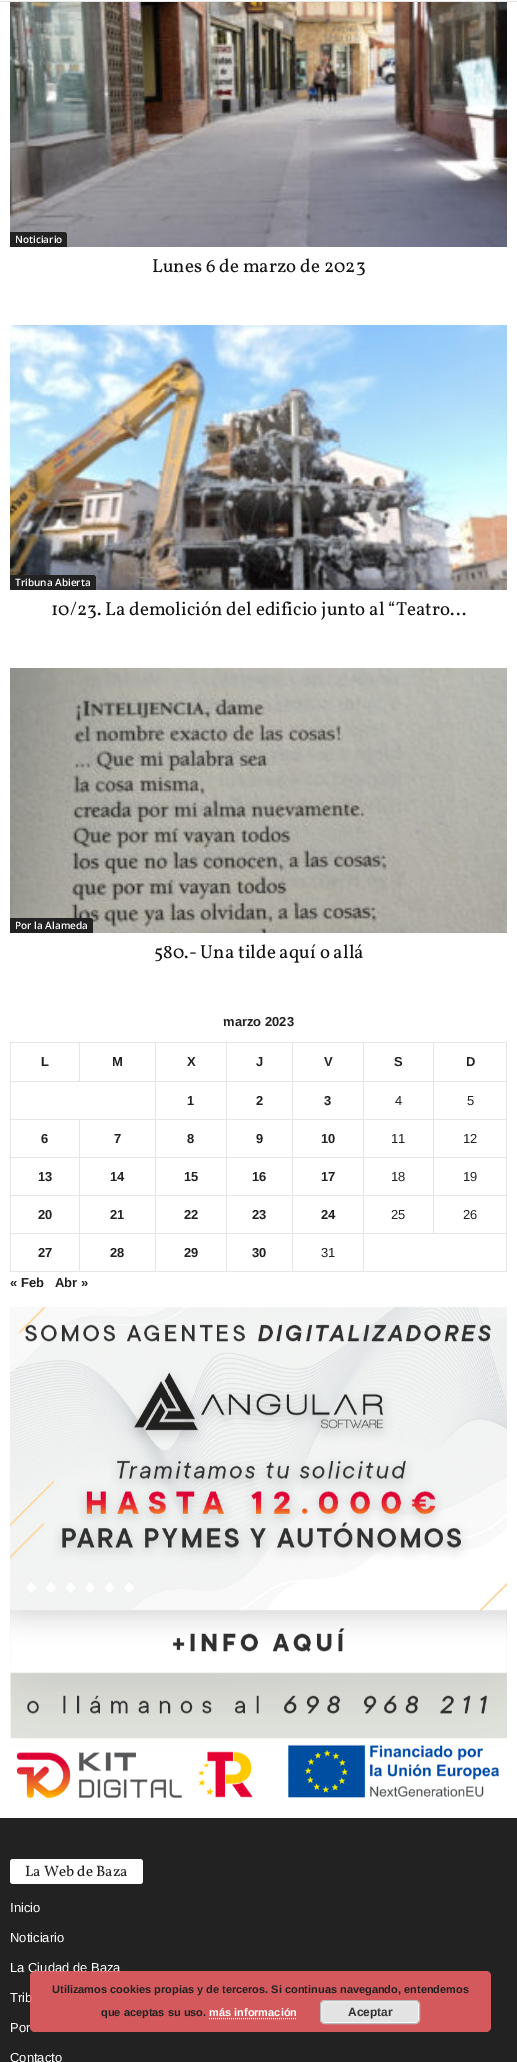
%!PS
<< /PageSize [517 2062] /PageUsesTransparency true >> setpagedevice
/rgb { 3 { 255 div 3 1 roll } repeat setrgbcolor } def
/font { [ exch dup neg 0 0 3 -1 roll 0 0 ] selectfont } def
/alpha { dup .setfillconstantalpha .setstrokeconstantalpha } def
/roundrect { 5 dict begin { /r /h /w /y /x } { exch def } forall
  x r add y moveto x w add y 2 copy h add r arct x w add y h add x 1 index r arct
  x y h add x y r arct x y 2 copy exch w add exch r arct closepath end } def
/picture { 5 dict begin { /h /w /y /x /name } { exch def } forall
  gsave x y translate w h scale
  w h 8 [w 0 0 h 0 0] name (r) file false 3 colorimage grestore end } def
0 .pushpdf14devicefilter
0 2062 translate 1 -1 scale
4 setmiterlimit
255 255 255 rgb
0 0 517 2062 rectfill
252 252 252 rgb
0 0 517 1 rectfill
230 230 230 rgb
0 1 517 1 rectfill
(img/1.rgb) 10 2 497 245 picture
34 34 34 rgb
10 232 moveto 64 232 lineto 65.5 232 67 233.5 67 235 curveto 67 247 lineto 10 247 lineto closepath fill
(img/2.rgb) 10 325 497 265 picture
10 575 moveto 93 575 lineto 94.5 575 96 576.5 96 578 curveto 96 590 lineto 10 590 lineto closepath fill
(img/3.rgb) 10 668 497 265 picture
10 918 moveto 90 918 lineto 91.5 918 93 919.5 93 921 curveto 93 933 lineto 10 933 lineto closepath fill
[
  [433 1042 74 1 230 230 230]
  [433 1081 74 1 230 230 230]
  [433 1119 74 1 230 230 230]
  [433 1157 74 1 230 230 230]
  [433 1195 74 1 230 230 230]
  [363 1233 144 1 230 230 230]
  [433 1195 1 39 230 230 230]
  [363 1195 71 1 230 230 230]
  [433 1157 1 39 230 230 230]
  [363 1157 71 1 230 230 230]
  [433 1119 1 39 230 230 230]
  [363 1119 71 1 230 230 230]
  [433 1081 1 39 230 230 230]
  [363 1081 71 1 230 230 230]
  [433 1042 1 40 230 230 230]
  [363 1042 71 1 230 230 230]
  [506 1233 1 39 230 230 230]
  [363 1271 144 1 230 230 230]
  [363 1233 1 39 230 230 230]
  [292 1233 72 1 230 230 230]
  [363 1195 1 39 230 230 230]
  [292 1195 72 1 230 230 230]
  [363 1157 1 39 230 230 230]
  [292 1157 72 1 230 230 230]
  [363 1119 1 39 230 230 230]
  [292 1119 72 1 230 230 230]
  [363 1081 1 39 230 230 230]
  [292 1081 72 1 230 230 230]
  [363 1042 1 40 230 230 230]
  [292 1042 72 1 230 230 230]
  [292 1271 72 1 230 230 230]
  [292 1233 1 39 230 230 230]
  [226 1233 67 1 230 230 230]
  [292 1195 1 39 230 230 230]
  [226 1195 67 1 230 230 230]
  [292 1157 1 39 230 230 230]
  [226 1157 67 1 230 230 230]
  [292 1119 1 39 230 230 230]
  [226 1119 67 1 230 230 230]
  [292 1081 1 39 230 230 230]
  [226 1081 67 1 230 230 230]
  [292 1042 1 40 230 230 230]
  [226 1042 67 1 230 230 230]
  [226 1271 67 1 230 230 230]
  [226 1233 1 39 230 230 230]
  [155 1233 72 1 230 230 230]
  [226 1195 1 39 230 230 230]
  [155 1195 72 1 230 230 230]
  [226 1157 1 39 230 230 230]
  [155 1157 72 1 230 230 230]
  [226 1119 1 39 230 230 230]
  [155 1119 72 1 230 230 230]
  [226 1081 1 39 230 230 230]
  [155 1081 72 1 230 230 230]
  [226 1042 1 40 230 230 230]
  [155 1042 72 1 230 230 230]
  [155 1271 72 1 230 230 230]
  [155 1233 1 39 230 230 230]
  [79 1233 77 1 230 230 230]
  [155 1195 1 39 230 230 230]
  [79 1195 77 1 230 230 230]
  [155 1157 1 39 230 230 230]
  [79 1157 77 1 230 230 230]
  [155 1119 1 39 230 230 230]
  [79 1119 77 1 230 230 230]
  [155 1081 1 39 230 230 230]
  [10 1081 146 1 230 230 230]
  [155 1042 1 40 230 230 230]
  [79 1042 77 1 230 230 230]
  [79 1042 1 40 230 230 230]
  [10 1042 70 1 230 230 230]
  [79 1271 77 1 230 230 230]
  [79 1233 1 39 230 230 230]
  [10 1233 70 1 230 230 230]
  [79 1195 1 39 230 230 230]
  [10 1195 70 1 230 230 230]
  [79 1157 1 39 230 230 230]
  [10 1157 70 1 230 230 230]
  [79 1119 1 39 230 230 230]
  [10 1119 70 1 230 230 230]
  [10 1271 70 1 230 230 230]
  [10 1233 1 39 230 230 230]
  [10 1195 1 39 230 230 230]
  [10 1157 1 39 230 230 230]
  [10 1119 1 39 230 230 230]
  [10 1081 1 39 230 230 230]
  [10 1042 1 40 230 230 230]
  [506 1195 1 39 230 230 230]
  [506 1157 1 39 230 230 230]
  [506 1119 1 39 230 230 230]
  [506 1081 1 39 230 230 230]
  [506 1042 1 40 230 230 230]
] { aload pop rgb rectfill } forall
(img/4.rgb) 10 1306 497 498 picture
34 34 34 rgb
0 1818 517 244 rectfill
255 255 255 rgb
10 1859 133 25 3 roundrect fill
/OpenSans-SemiBold 10 font
15 243 moveto (Noticiario) show
/Vollkorn-Regular 19 font
17 17 17 rgb
152 272 moveto (Lunes 6 de marzo de 2023) show
/OpenSans-SemiBold 10 font
255 255 255 rgb
15 586 moveto (Tribuna Abierta) show
/Vollkorn-Regular 19 font
17 17 17 rgb
51 615 moveto (10/23. La demolición del edificio junto al “Teatro…) show
/OpenSans-SemiBold 10 font
255 255 255 rgb
15 929 moveto (Por la Alameda) show
/Vollkorn-Regular 19 font
17 17 17 rgb
154 958 moveto (580.- Una tilde aquí o allá) show
/LiberationSans-Bold 13 font
34 34 34 rgb
[
  [(marzo 2023) 223 1026]
  [(L) 41 1066]
  [(M) 112 1066]
  [(X) 187 1066]
  [(J) 256 1066]
  [(V) 324 1066]
  [(S) 394 1066]
  [(D) 466 1066]
  [(1) 187 1105]
  [(2) 256 1105]
  [(3) 324 1105]
] { aload pop moveto show } forall
/LiberationSans-Regular 13 font
395 1105 moveto (4) show
467 1105 moveto (5) show
/LiberationSans-Bold 13 font
[
  [(6) 41 1143]
  [(7) 114 1143]
  [(8) 187 1143]
  [(9) 256 1143]
  [(10) 321 1143]
] { aload pop moveto show } forall
/LiberationSans-Regular 13 font
391 1143 moveto (11) show
463 1143 moveto (12) show
/LiberationSans-Bold 13 font
[
  [(13) 38 1181]
  [(14) 110 1181]
  [(15) 184 1181]
  [(16) 252 1181]
  [(17) 321 1181]
] { aload pop moveto show } forall
/LiberationSans-Regular 13 font
391 1181 moveto (18) show
463 1181 moveto (19) show
/LiberationSans-Bold 13 font
[
  [(20) 38 1219]
  [(21) 110 1219]
  [(22) 184 1219]
  [(23) 252 1219]
  [(24) 321 1219]
] { aload pop moveto show } forall
/LiberationSans-Regular 13 font
391 1219 moveto (25) show
463 1219 moveto (26) show
/LiberationSans-Bold 13 font
[
  [(27) 38 1257]
  [(28) 110 1257]
  [(29) 184 1257]
  [(30) 252 1257]
] { aload pop moveto show } forall
/LiberationSans-Regular 13 font
321 1257 moveto (31) show
/LiberationSans-Bold 13 font
10 1287 moveto (« Feb) show
55 1287 moveto (Abr ») show
/Vollkorn-Regular 15 font
25 1876 moveto (La Web de Baza) show
/LiberationSans-Regular 13 font
255 255 255 rgb
[
  [(Inicio) 10 1912]
  [(Noticiario) 10 1942]
  [(La Ciudad de Baza) 10 1972]
  [(Trib) 10 2002]
  [(Por) 10 2032]
  [(Contacto) 10 2062]
] { aload pop moveto show } forall
0.85 alpha
242 99 103 rgb
30 1971 461 61 5 roundrect fill
/LiberationSans-Bold 11 font
1 alpha
34 34 34 rgb
52 1993 moveto (Utilizamos cookies propias y de terceros. Si continuas navegando, entendemos) show
101 2016 moveto (que aceptas su uso.) show
255 255 255 rgb
209 2016 moveto (más información) show
[1 1] 0 setdash
209 2018.5 moveto 297 2018.5 lineto stroke
227 227 227 rgb
320 2000 100 24 5 roundrect fill
246 246 246 rgb
[] 0 setdash
321.5 2001.5 97 21 3.5 roundrect stroke
187 187 187 rgb
320.5 2000.5 99 23 4.5 roundrect stroke
/LiberationSans-Bold 12 font
51 51 51 rgb
348 2016 moveto (Aceptar) show
.poppdf14devicefilter showpage
